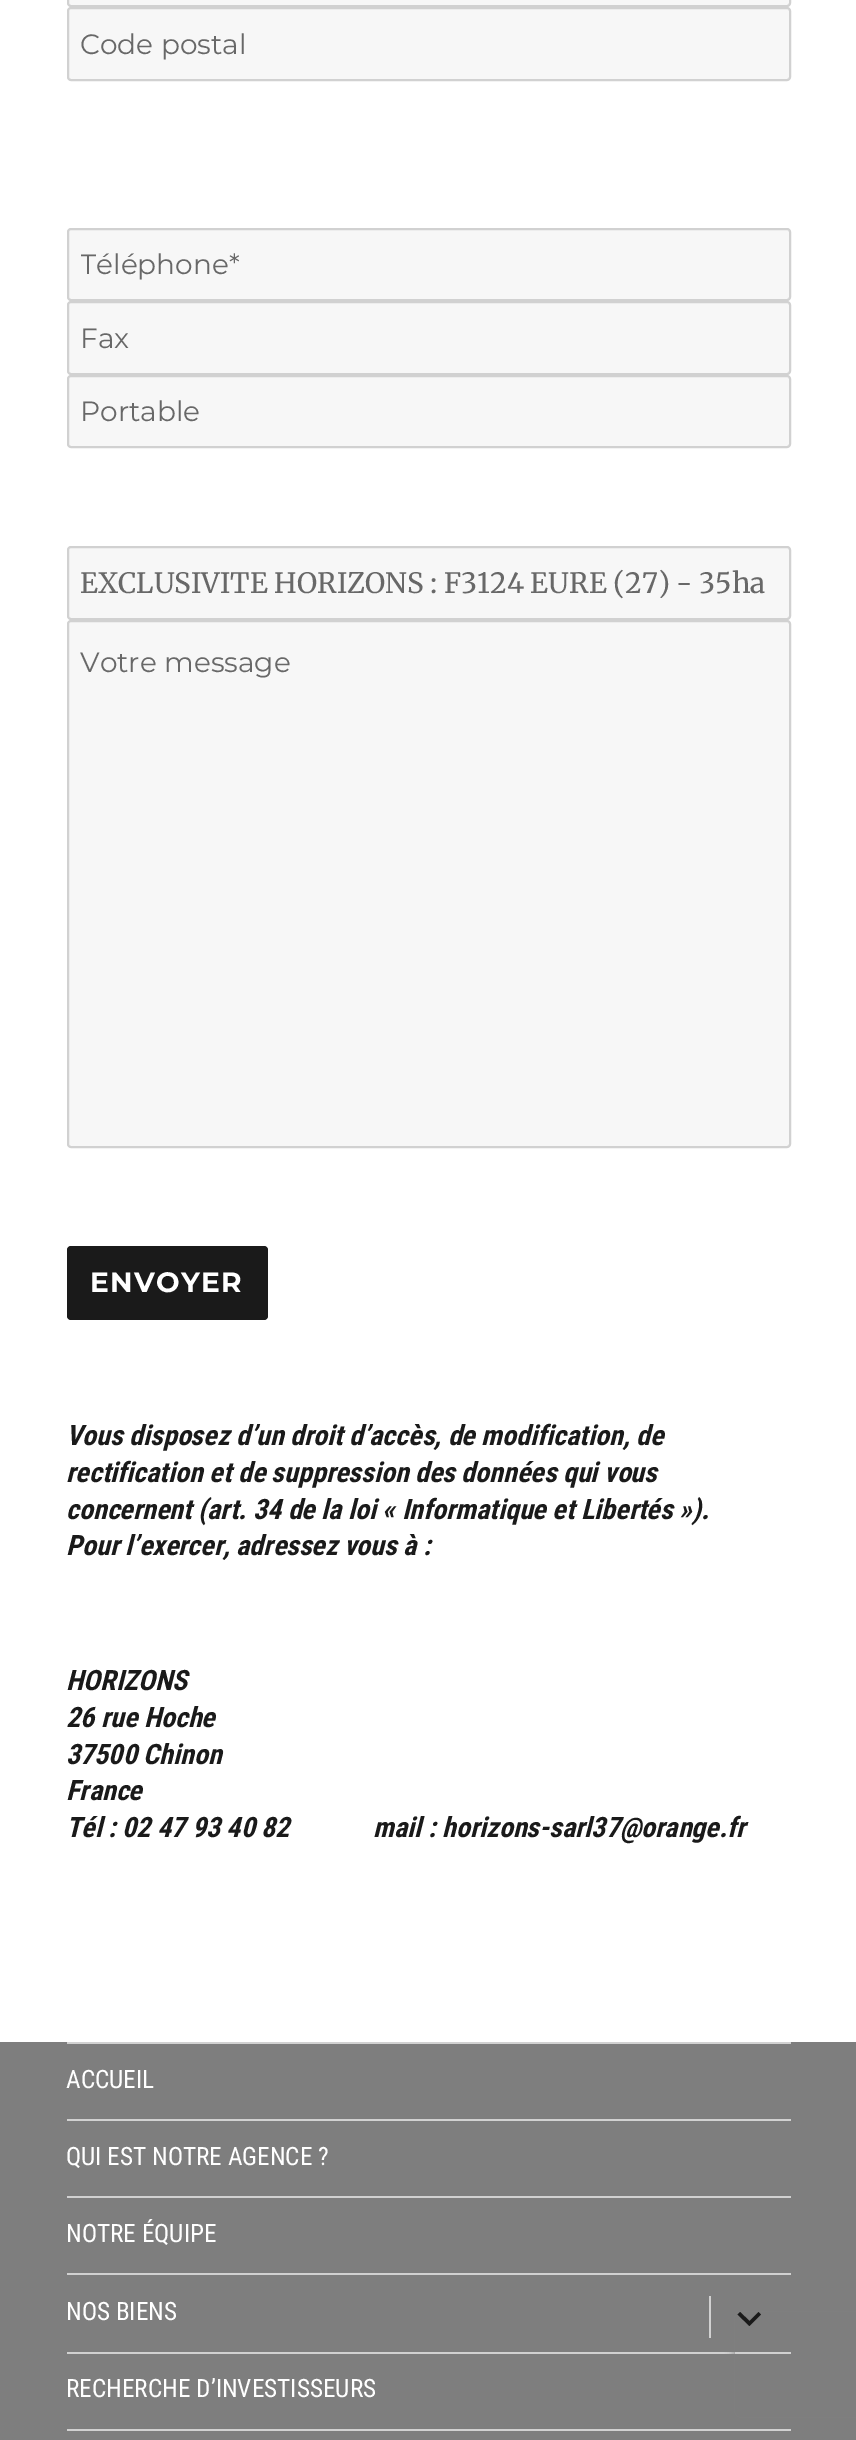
%!PS
<< /PageSize [856 2440] /PageUsesTransparency true >> setpagedevice
/rgb { 3 { 255 div 3 1 roll } repeat setrgbcolor } def
/font { [ exch dup neg 0 0 3 -1 roll 0 0 ] selectfont } def
/alpha { dup .setfillconstantalpha .setstrokeconstantalpha } def
/roundrect { 5 dict begin { /r /h /w /y /x } { exch def } forall
  x r add y moveto x w add y 2 copy h add r arct x w add y h add x 1 index r arct
  x y h add x y r arct x y 2 copy exch w add exch r arct closepath end } def
/shadow { 12 dict begin { /a /b /q /h /w /y /x } { exch def } forall gsave /was 0 def
  9 -2 -9 { dup b mul 4 div /e exch def 1 sub .425 mul 2.718 exch exp 1 add a .99 .min exch div /now exch def
    1 1 now sub 1 was sub div sub alpha /was now def
    w h .min e 2 mul add 0 gt { x e sub y e sub w e 2 mul add h e 2 mul add
      q e add b .6 mul add w h .min 2 div e add .min 0 .max roundrect fill } if } for grestore end } def
0 .pushpdf14devicefilter
0 2440 translate 1 -1 scale
4 setmiterlimit
255 255 255 rgb
0 0 856 2440 rectfill
247 247 247 rgb
68 -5 722 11 3 roundrect gsave fill grestore
209 209 209 rgb
2 setlinewidth
stroke
247 247 247 rgb
68 8 722 72 3 roundrect gsave fill grestore
209 209 209 rgb
stroke
247 247 247 rgb
68 229 722 71 3 roundrect gsave fill grestore
209 209 209 rgb
stroke
247 247 247 rgb
68 302 722 72 3 roundrect gsave fill grestore
209 209 209 rgb
stroke
247 247 247 rgb
68 376 722 71 3 roundrect gsave fill grestore
209 209 209 rgb
stroke
247 247 247 rgb
68 547 722 72 3 roundrect gsave fill grestore
209 209 209 rgb
stroke
247 247 247 rgb
68 621 722 526 3 roundrect gsave fill grestore
209 209 209 rgb
stroke
26 26 26 rgb
67 1246 201 74 4 roundrect fill
[
  [0 2042 856 398 126 126 126]
  [67 2042 724 2 209 209 209]
  [67 2119 724 2 209 209 209]
  [67 2196 724 2 209 209 209]
  [67 2273 724 2 209 209 209]
  [709 2296 2 42 209 209 209]
] { aload pop rgb rectfill } forall
26 26 26 rgb
758.5 2312 moveto 761 2314.5 lineto 749.5 2326 lineto 737.5 2314.5 lineto 740 2312 lineto 749.5 2321 lineto closepath fill
209 209 209 rgb
67 2352 724 2 rectfill
67 2429 724 2 rectfill
gsave
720 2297 moveto 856 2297 lineto 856 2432 lineto 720 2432 lineto closepath 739 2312 moveto 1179 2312 lineto 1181 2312 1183 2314 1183 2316 curveto 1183 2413 lineto 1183 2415 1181 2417 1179 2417 curveto 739 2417 lineto 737 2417 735 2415 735 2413 curveto 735 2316 lineto 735 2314 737 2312 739 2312 curveto closepath eoclip newpath
128 128 128 rgb
735 2312 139 105 4 4.5 1 shadow
grestore
/Montserrat-Regular 28 font
104 104 104 rgb
80 54 moveto (Code postal) show
gsave
81 249 696 33 rectclip
80 274 moveto (Téléphone*) show
grestore
80 348 moveto (Fax) show
80 421 moveto (Portable) show
/Merriweather-Regular 28 font
80 593 moveto (EXCLUSIVITE HORIZONS : F3124 EURE \(27\) - 35ha) show
/Montserrat-Regular 28 font
80 672 moveto (Votre message) show
/Montserrat-Bold 28 font
255 255 255 rgb
90 1292 moveto 1.25 0 (ENVOYER) ashow
/RobotoCondensed-BoldItalic 28 font
26 26 26 rgb
[
  [(Vous disposez d’un droit d’accès, de modification, de) 66 1445]
  [(rectification et de suppression des données qui vous) 66 1482]
  [(concernent \(art. 34 de la loi « Informatique et Libertés »\).) 66 1519]
  [(Pour l’exercer, adressez vous à :) 66 1555]
  [(HORIZONS) 66 1690]
  [(26 rue Hoche) 66 1727]
  [(37500 Chinon) 66 1764]
  [(France) 66 1800]
  [(Tél : 02 47 93 40 82             mail : horizons-sarl37@orange.fr) 66 1837]
] { aload pop moveto show } forall
/RobotoCondensed-Regular 25.25 font
255 255 255 rgb
[
  [(ACCUEIL) 66 2088]
  [(QUI EST NOTRE AGENCE ?) 66 2165]
  [(NOTRE ÉQUIPE) 66 2242]
  [(NOS BIENS) 66 2320]
  [(RECHERCHE D’INVESTISSEURS) 66 2397]
] { aload pop moveto show } forall
.poppdf14devicefilter showpage
